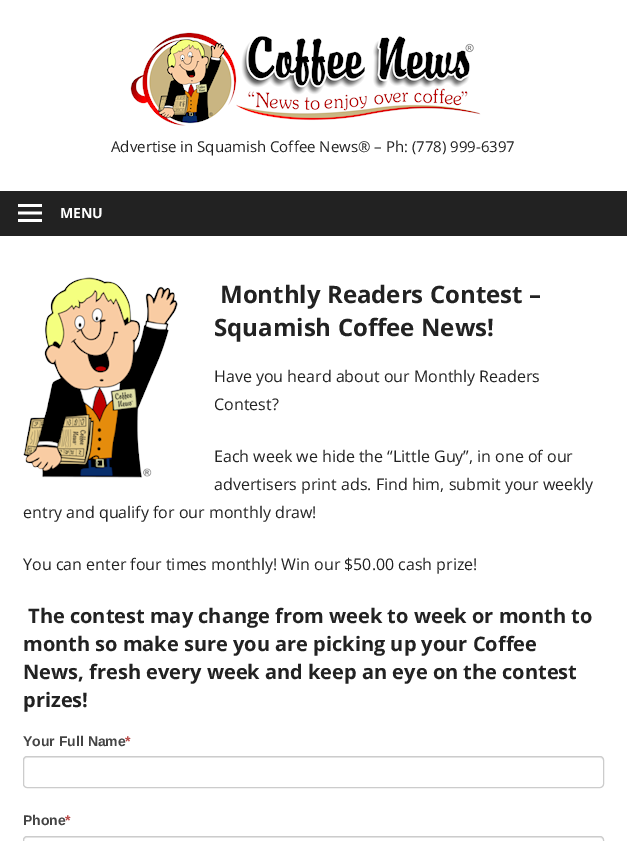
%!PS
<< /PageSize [627 841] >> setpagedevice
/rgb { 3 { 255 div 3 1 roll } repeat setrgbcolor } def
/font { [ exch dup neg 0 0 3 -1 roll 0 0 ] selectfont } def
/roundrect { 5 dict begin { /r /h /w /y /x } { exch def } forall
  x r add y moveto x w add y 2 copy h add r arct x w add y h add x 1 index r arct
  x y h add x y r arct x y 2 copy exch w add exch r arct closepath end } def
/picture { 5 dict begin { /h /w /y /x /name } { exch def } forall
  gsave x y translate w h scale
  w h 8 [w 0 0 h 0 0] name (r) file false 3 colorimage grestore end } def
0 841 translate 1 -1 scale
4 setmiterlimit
255 255 255 rgb
0 0 627 841 rectfill
(img/1.rgb) 130 32 351 94 picture
34 34 34 rgb
0 191 627 45 rectfill
(img/2.rgb) 18 204 24 18 picture
(img/3.rgb) 23 277 155 201 picture
236 236 236 rgb
27 758 moveto 600 758 lineto 602 758 603 759 603 761 curveto 603 760 lineto 603 758 602 757 600 757 curveto 27 757 lineto 25 757 24 758 24 760 curveto 24 761 lineto 24 759 25 758 27 758 curveto closepath fill
204 204 204 rgb
23.5 756.5 580 31 3.5 roundrect stroke
236 236 236 rgb
27 838 moveto 600 838 lineto 602 838 603 839 603 841 curveto 603 840 lineto 603 838 602 837 600 837 curveto 27 837 lineto 25 837 24 838 24 840 curveto 24 841 lineto 24 839 25 838 27 838 curveto closepath fill
204 204 204 rgb
23.5 836.5 580 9 3.5 roundrect stroke
/OpenSans-Regular 15 font
34 34 34 rgb
111 152 moveto (Advertise in Squamish Coffee News® – Ph: \(778\) 999-6397) show
/OpenSans-Bold 14 font
255 255 255 rgb
60 218 moveto (MENU) show
/OpenSans-Bold 24 font
34 34 34 rgb
220 303 moveto (Monthly Readers Contest –) show
214 336 moveto (Squamish Coffee News!) show
/OpenSans-Regular 16 font
[
  [(Have you heard about our Monthly Readers) 214 382]
  [(Contest?) 214 410]
  [(Each week we hide the “Little Guy”, in one of our) 214 462]
  [(advertisers print ads. Find him, submit your weekly) 214 490]
  [(entry and qualify for our monthly draw!) 23 518]
  [(You can enter four times monthly! Win our $50.00 cash prize!) 23 570]
] { aload pop moveto show } forall
/OpenSans-Bold 20 font
[
  [(The contest may change from week to week or month to) 28 623]
  [(month so make sure you are picking up your Coffee) 23 651]
  [(News, fresh every week and keep an eye on the contest) 23 679]
  [(prizes!) 23 707]
] { aload pop moveto show } forall
/LiberationSans-Bold 14 font
68 68 68 rgb
23 746 moveto (Your Full Name) show
185 74 72 rgb
125 746 moveto (*) show
68 68 68 rgb
23 825 moveto (Phone) show
185 74 72 rgb
65 825 moveto (*) show
showpage
